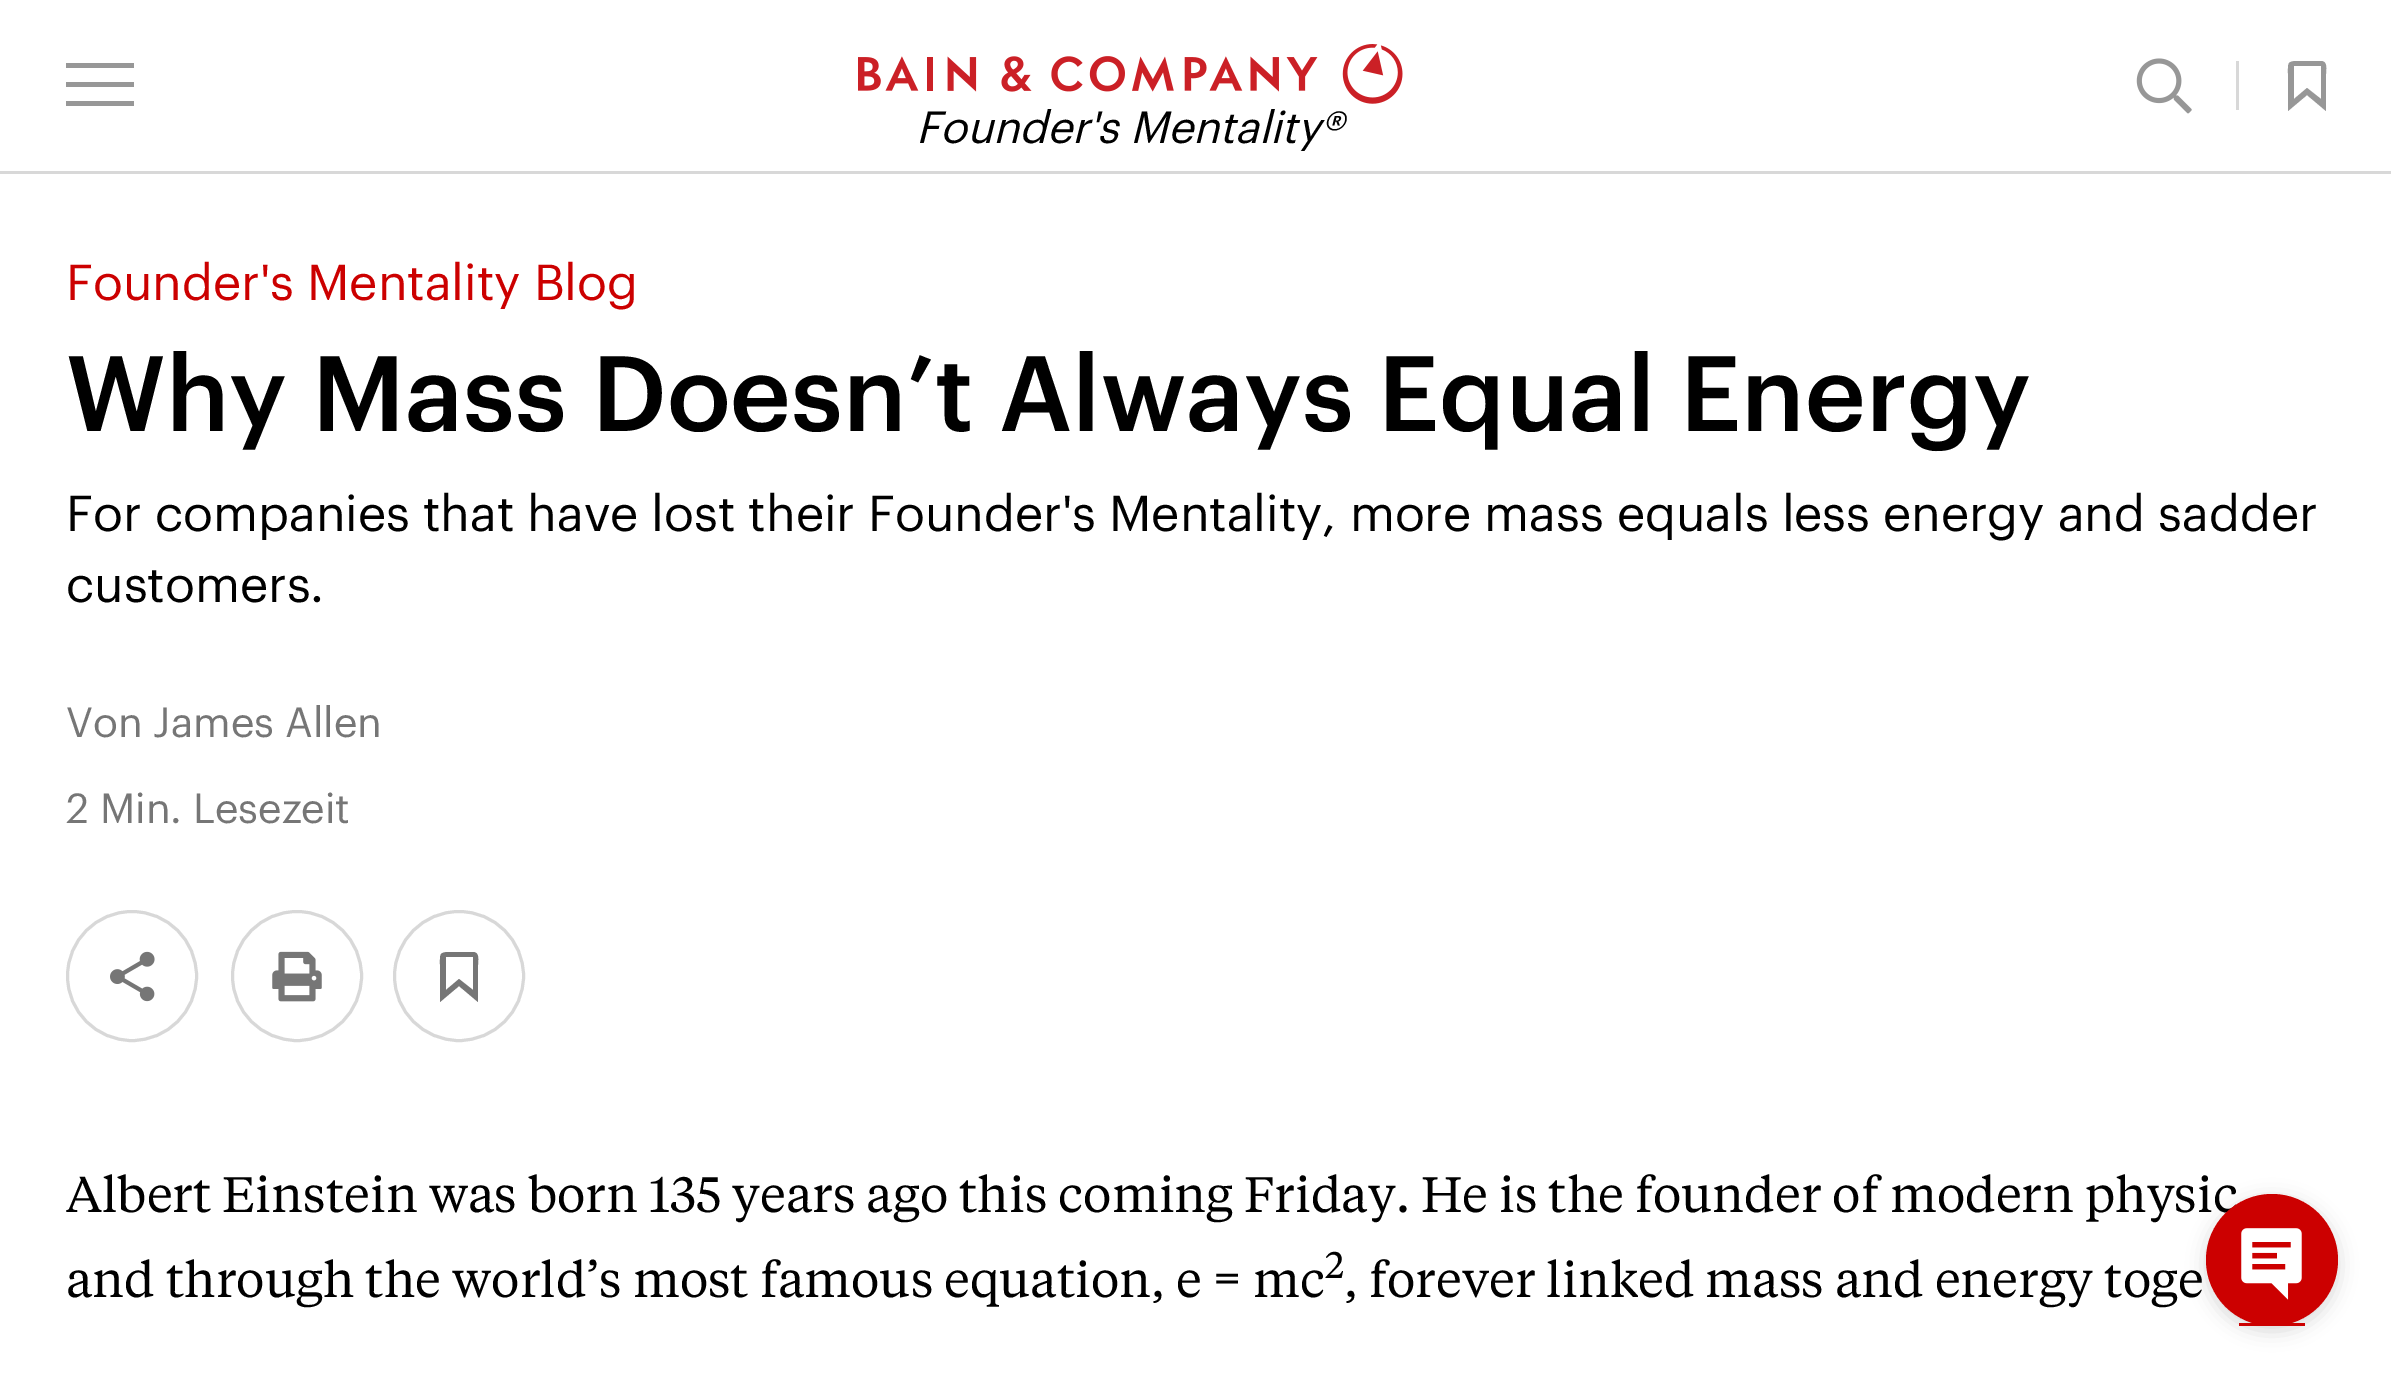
%!PS
<< /PageSize [2391 1379] /PageUsesTransparency true >> setpagedevice
/rgb { 3 { 255 div 3 1 roll } repeat setrgbcolor } def
/font { [ exch dup neg 0 0 3 -1 roll 0 0 ] selectfont } def
/alpha { dup .setfillconstantalpha .setstrokeconstantalpha } def
/circle { newpath 0 360 arc closepath } def
/roundrect { 5 dict begin { /r /h /w /y /x } { exch def } forall
  x r add y moveto x w add y 2 copy h add r arct x w add y h add x 1 index r arct
  x y h add x y r arct x y 2 copy exch w add exch r arct closepath end } def
/shadow { 12 dict begin { /a /b /q /h /w /y /x } { exch def } forall gsave /was 0 def
  9 -2 -9 { dup b mul 4 div /e exch def 1 sub .425 mul 2.718 exch exp 1 add a .99 .min exch div /now exch def
    1 1 now sub 1 was sub div sub alpha /was now def
    w h .min e 2 mul add 0 gt { x e sub y e sub w e 2 mul add h e 2 mul add
      q e add b .6 mul add w h .min 2 div e add .min 0 .max roundrect fill } if } for grestore end } def
/picture { 5 dict begin { /h /w /y /x /name } { exch def } forall
  gsave x y translate w h scale
  w h 8 [w 0 0 h 0 0] name (r) file false 3 colorimage grestore end } def
0 .pushpdf14devicefilter
0 1379 translate 1 -1 scale
4 setmiterlimit
255 255 255 rgb
0 0 2391 1379 rectfill
216 216 216 rgb
0 171 2391 3 rectfill
151 151 151 rgb
66 63 moveto 134 63 lineto 134 68 lineto 66 68 lineto closepath 66 82 moveto 134 82 lineto 134 87 lineto 66 87 lineto closepath 66 101 moveto 134 101 lineto 134 106 lineto 66 106 lineto closepath fill
(img/1.rgb) 2136 58 56 56 picture
216 216 216 rgb
2236 61 3 49 rectfill
151 151 151 rgb
2321 61 moveto 2298 61 lineto 2287 61 2288 63 2288 74 curveto 2288 111 lineto 2307 95 lineto 2326 111 lineto 2326 74 lineto 2326 70 2328 61 2321 61 curveto closepath 2321 99 moveto 2307 88 lineto 2294 99 lineto 2294 66 lineto 2321 66 lineto closepath fill
(img/2.rgb) 858 44 545 60 picture
216 216 216 rgb
3 setlinewidth
132 976 64.5 circle stroke
(img/3.rgb) 110 951 45 51 picture
297 976 64.5 circle stroke
(img/4.rgb) 272 951 50 51 picture
459 976 64.5 circle stroke
118 118 118 rgb
473 952 moveto 450 952 lineto 439 952 440 954 440 965 curveto 440 1002 lineto 459 986 lineto 478 1002 lineto 478 965 lineto 478 961 480 952 473 952 curveto closepath 473 990 moveto 459 979 lineto 446 990 lineto 446 957 lineto 473 957 lineto closepath fill
0 0 0 rgb
2206 1199 132 132 66 9.5 0.15 shadow
/Graphik-Italic 44 font
916 143 moveto (Founder's Mentality®) show
/Graphik-Regular 49.5 font
204 0 0 rgb
66 300 moveto (Founder's Mentality Blog) show
/Graphik-Medium 104.5 font
0 0 0 rgb
66 431 moveto (Why Mass Doesn’t Always Equal Energy) show
/Graphik-Regular 49.5 font
66 531 moveto (For companies that have lost their Founder's Mentality, more mass equals less energy and sadder) show
66 602 moveto (customers.) show
/Graphik-Regular 41.25 font
118 118 118 rgb
66 737 moveto (Von James Allen) show
66 823 moveto (2 Min. Lesezeit) show
/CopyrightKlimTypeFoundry-Regular 49.5 font
0 0 0 rgb
66 1212 moveto (Albert Einstein was born 135 years ago this coming Friday. He is the founder of modern physic) show
66 1297 moveto (and through the world’s most famous equation, e = mc) show
/CopyrightKlimTypeFoundry-Regular 37 font
1325 1278 moveto (2) show
/CopyrightKlimTypeFoundry-Regular 49.5 font
1344 1297 moveto (, forever linked mass and energy toge) show
204 0 0 rgb
2272 1260 66 circle fill
2239 1323 66 3 rectfill
(img/5.rgb) 2241 1228 61 72 picture
.poppdf14devicefilter showpage
